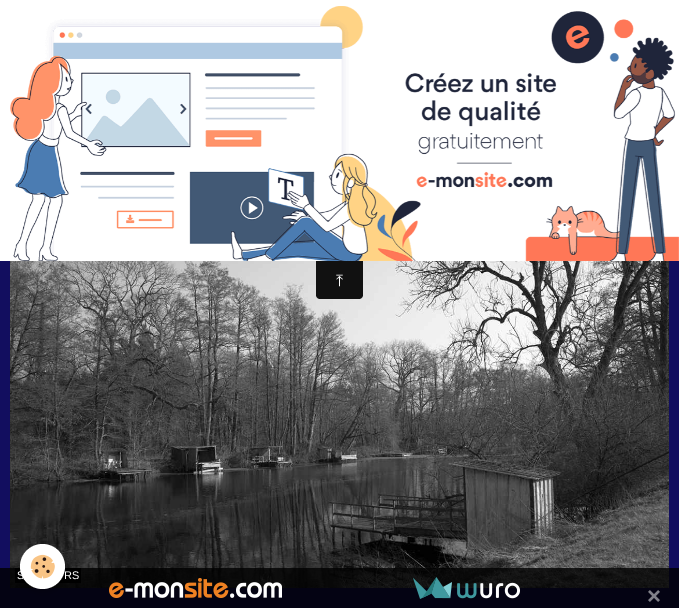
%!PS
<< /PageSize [679 608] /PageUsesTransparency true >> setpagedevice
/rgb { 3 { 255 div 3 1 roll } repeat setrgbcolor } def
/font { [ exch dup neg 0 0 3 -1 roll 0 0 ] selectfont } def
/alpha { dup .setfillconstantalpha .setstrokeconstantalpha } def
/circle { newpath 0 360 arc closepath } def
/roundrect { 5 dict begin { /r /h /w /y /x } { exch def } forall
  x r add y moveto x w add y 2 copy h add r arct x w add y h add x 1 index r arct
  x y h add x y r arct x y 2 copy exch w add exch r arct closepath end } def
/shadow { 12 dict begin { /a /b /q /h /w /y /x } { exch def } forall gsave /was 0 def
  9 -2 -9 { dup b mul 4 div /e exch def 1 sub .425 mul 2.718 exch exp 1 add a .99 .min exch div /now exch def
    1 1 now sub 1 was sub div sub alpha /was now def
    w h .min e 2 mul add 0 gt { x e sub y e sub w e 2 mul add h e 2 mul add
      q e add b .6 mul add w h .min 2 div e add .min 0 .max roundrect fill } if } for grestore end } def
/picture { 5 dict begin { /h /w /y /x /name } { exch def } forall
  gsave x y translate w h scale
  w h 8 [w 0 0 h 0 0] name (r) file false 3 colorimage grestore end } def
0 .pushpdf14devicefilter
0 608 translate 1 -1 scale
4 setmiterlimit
18 14 95 rgb
0 0 679 608 rectfill
(img/1.rgb) 10 261 659 327 picture
255 255 255 rgb
0 0 679 261 rectfill
(img/2.rgb) 10 6 669 255 picture
17 17 17 rgb
316 261 moveto 363 261 lineto 363 295 lineto 363 297 361 299 359 299 curveto 320 299 lineto 318 299 316 297 316 295 curveto closepath fill
0.8 alpha
0 0 0 rgb
0 568 679 40 rectfill
1 alpha
15 568 66 15 rectfill
20 547 45 45 22.5 5 0.24 shadow
255 255 255 rgb
42.5 566.5 22.5 circle fill
(img/3.rgb) 30 554 25 25 picture
(img/4.rgb) 109 578 173 20 picture
(img/5.rgb) 413 577 107 22 picture
/FreeSerif-Regular 16 font
336 286 moveto (⤒) show
/LiberationSans-Regular 11 font
17 579 moveto (S) show
64 579 moveto (RS) show
/LiberationSans-Bold 24 font
129 129 137 rgb
647 604 moveto (×) show
.poppdf14devicefilter showpage
